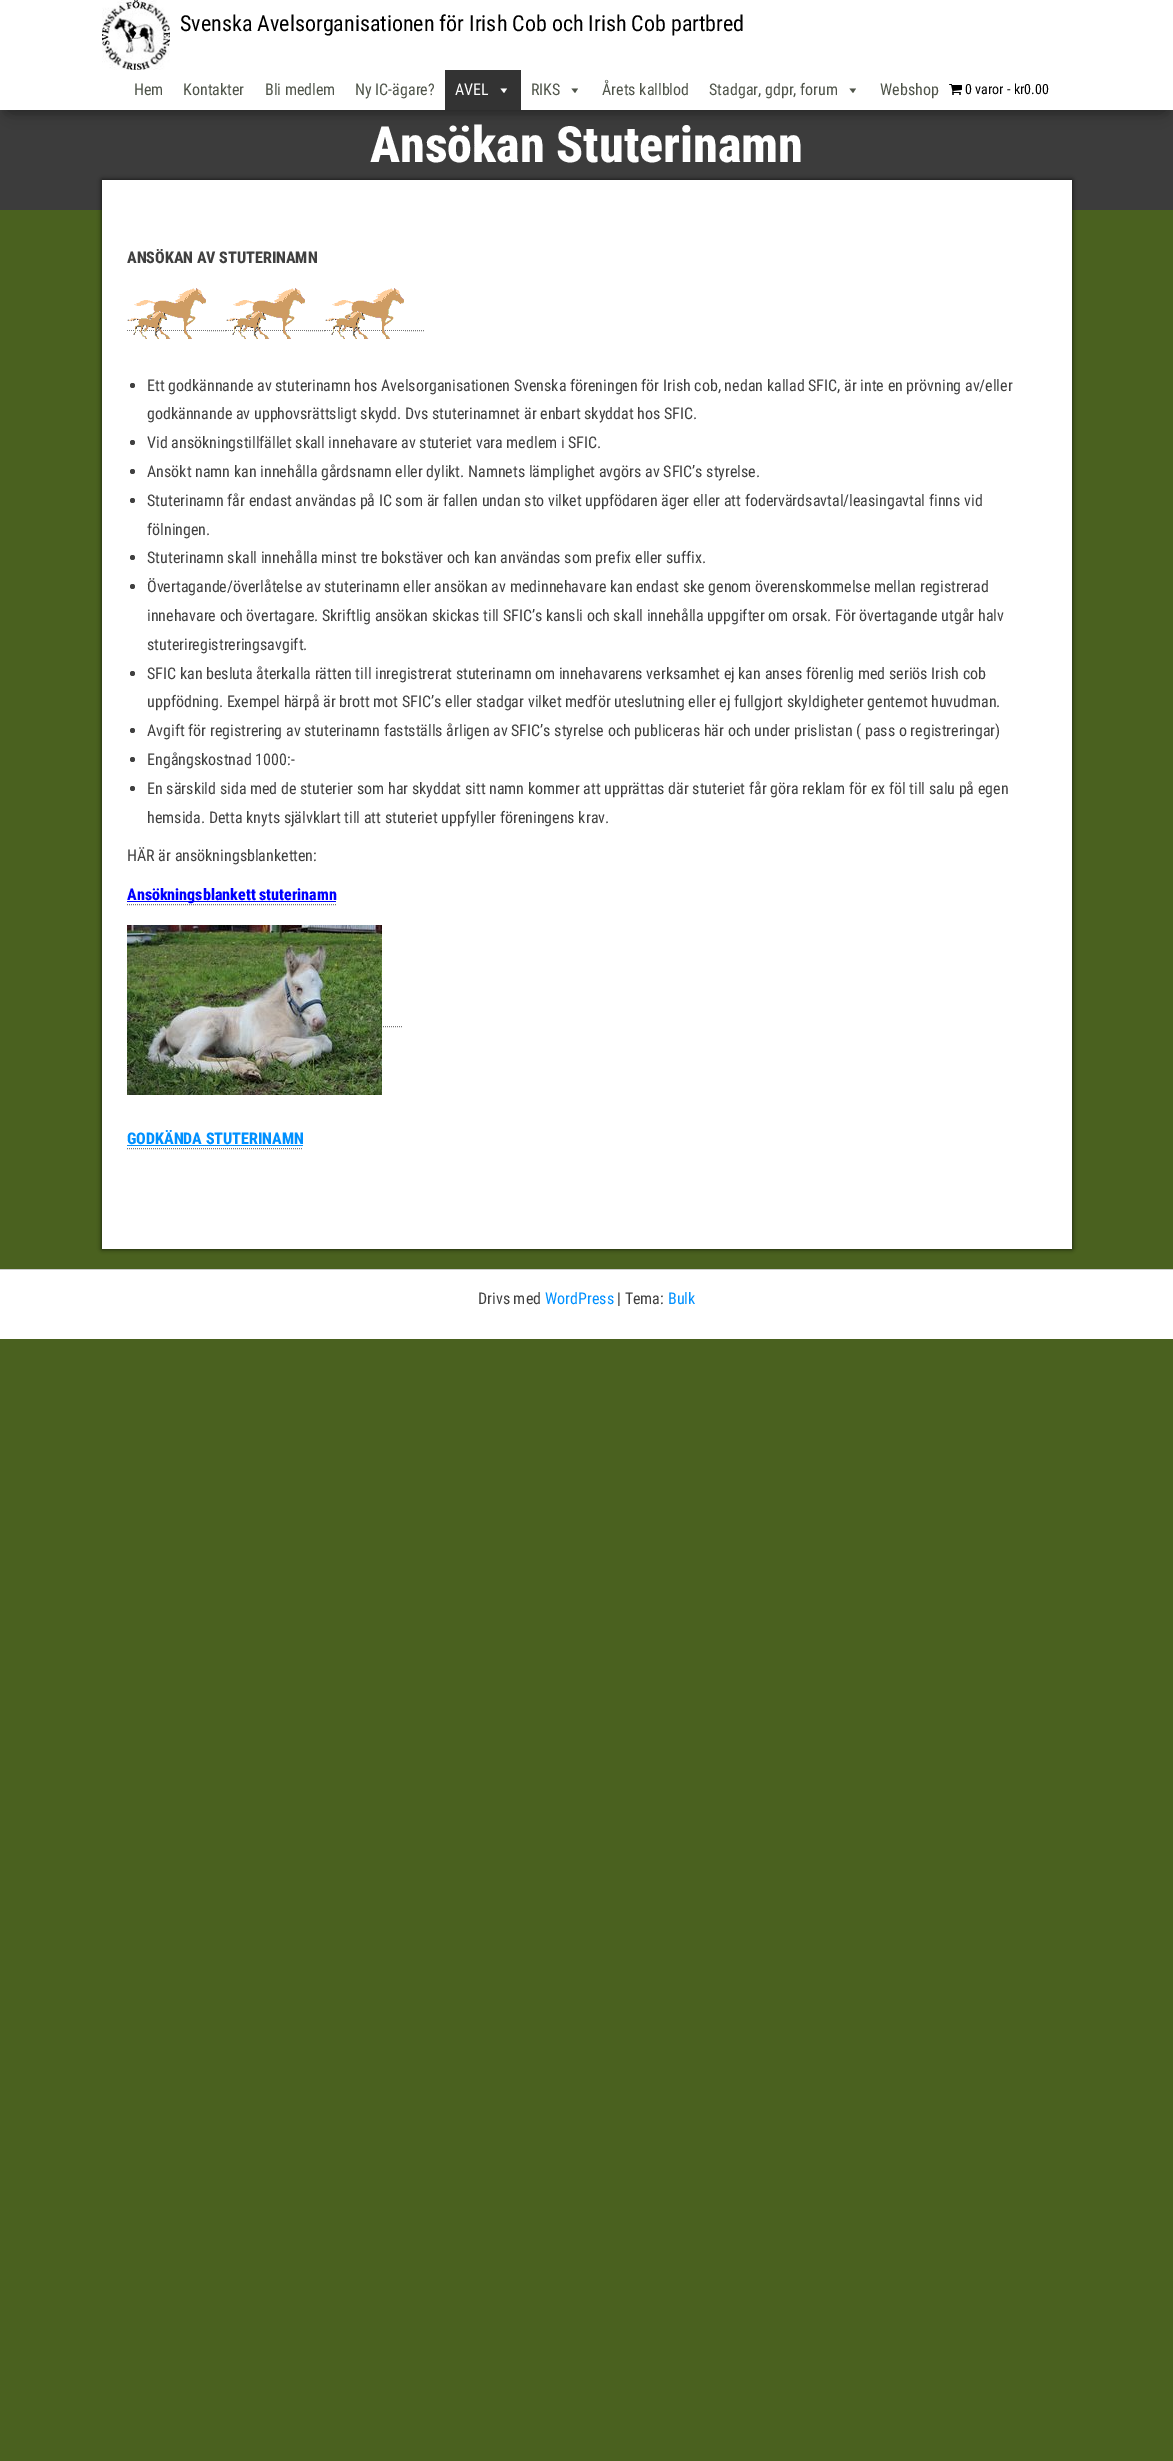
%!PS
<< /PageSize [1173 2461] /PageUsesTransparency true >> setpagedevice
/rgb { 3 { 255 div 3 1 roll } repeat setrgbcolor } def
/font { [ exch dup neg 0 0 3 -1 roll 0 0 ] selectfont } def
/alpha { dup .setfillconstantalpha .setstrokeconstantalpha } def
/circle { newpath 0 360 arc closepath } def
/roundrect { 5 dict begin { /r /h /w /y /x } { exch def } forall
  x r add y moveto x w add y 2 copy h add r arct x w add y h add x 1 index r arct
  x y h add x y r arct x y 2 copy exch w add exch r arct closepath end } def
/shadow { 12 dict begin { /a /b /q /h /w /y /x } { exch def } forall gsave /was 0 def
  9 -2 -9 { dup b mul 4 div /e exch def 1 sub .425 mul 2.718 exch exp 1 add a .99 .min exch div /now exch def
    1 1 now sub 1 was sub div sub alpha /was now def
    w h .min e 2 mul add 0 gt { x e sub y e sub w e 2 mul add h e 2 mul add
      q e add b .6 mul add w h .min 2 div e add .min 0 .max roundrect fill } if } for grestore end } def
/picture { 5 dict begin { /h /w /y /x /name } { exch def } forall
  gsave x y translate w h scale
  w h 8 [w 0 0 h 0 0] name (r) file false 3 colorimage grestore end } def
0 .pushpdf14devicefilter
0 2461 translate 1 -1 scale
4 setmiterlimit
74 97 31 rgb
0 0 1173 2461 rectfill
60 60 60 rgb
0 110 1173 100 rectfill
0 0 0 rgb
5 13 1163 100 0 5 0.2 shadow
12 22 1149 86 0 10 0.42 shadow
255 255 255 rgb
0 0 1173 110 rectfill
(img/1.rgb) 102 0 68 70 picture
51 51 51 rgb
445 70 76 40 rectfill
255 255 255 rgb
507 88.5 moveto 504 93 lineto 500.5 88.5 lineto closepath fill
79 84 74 rgb
578 88.5 moveto 575 93 lineto 571.5 88.5 lineto closepath fill
856 88.5 moveto 853 93 lineto 849.5 88.5 lineto closepath fill
(img/2.rgb) 949 84 13 11 picture
0 0 0 rgb
102 180 970 1069 0 2.5 0.75 shadow
255 255 255 rgb
102 180 970 1069 rectfill
119 119 119 rgb
[1 1] 0 setdash
127 330.5 moveto 226 330.5 lineto stroke
(img/3.rgb) 127 288 79 51 picture
226 330.5 moveto 325 330.5 lineto stroke
(img/3.rgb) 226 288 79 51 picture
325 330.5 moveto 424 330.5 lineto stroke
(img/3.rgb) 325 288 79 51 picture
64 64 64 rgb
132.5 385.5 2.5 circle fill
132.5 442.5 2.5 circle fill
132.5 471.5 2.5 circle fill
132.5 500.5 2.5 circle fill
132.5 557.5 2.5 circle fill
132.5 586.5 2.5 circle fill
132.5 673.5 2.5 circle fill
132.5 730.5 2.5 circle fill
132.5 759.5 2.5 circle fill
132.5 788.5 2.5 circle fill
119 119 119 rgb
127 904.5 moveto 336 904.5 lineto stroke
0 0 255 rgb
127 901 209 1 rectfill
119 119 119 rgb
127 1026.5 moveto 402 1026.5 lineto stroke
(img/4.rgb) 127 925 255 170 picture
127 1148.5 moveto 303 1148.5 lineto stroke
[
  [127 1145 176 1 0 144 255]
  [0 1270 1173 69 255 255 255]
  [0 1269 1173 1 204 204 204]
] { aload pop rgb rectfill } forall
/RobotoCondensed-Regular 22 font
0 0 0 rgb
180 31 moveto (Svenska Avelsorganisationen för Irish Cob och Irish Cob partbred) show
/RobotoCondensed-Regular 16 font
79 84 74 rgb
[
  [(Hem) 134 95]
  [(Kontakter) 183 95]
  [(Bli medlem) 265 95]
  [(Ny IC-ägare?) 355 95]
] { aload pop moveto show } forall
255 255 255 rgb
455 95 moveto (AVEL) show
79 84 74 rgb
[
  [(RIKS) 531 95]
  [(Årets kallblod) 602 95]
  [(Stadgar, gdpr, forum) 709 95]
  [(Webshop) 880 95]
] { aload pop moveto show } forall
/RobotoCondensed-Regular 14 font
0 0 0 rgb
965 94 moveto (0 varor) show
1007 94 moveto (- kr0.00) show
/RobotoCondensed-ExtraBold 50 font
255 255 255 rgb
370 162 moveto (Ansökan Stuterinamn) show
/RobotoCondensed-ExtraBold 16 font
64 64 64 rgb
127 263 moveto (ANSÖKAN AV STUTERINAMN) show
/RobotoCondensed-Regular 16 font
[
  [(Ett godkännande av stuterinamn hos Avelsorganisationen Svenska föreningen för Irish cob, nedan kallad SFIC, är inte en prövning av/eller) 147 391]
  [(godkännande av upphovsrättsligt skydd. Dvs stuterinamnet är enbart skyddat hos SFIC.) 147 419]
  [(Vid ansökningstillfället skall innehavare av stuteriet vara medlem i SFIC.) 147 448]
  [(Ansökt namn kan innehålla gårdsnamn eller dylikt. Namnets lämplighet avgörs av SFIC’s styrelse.) 147 477]
  [(Stuterinamn får endast användas på IC som är fallen undan sto vilket uppfödaren äger eller att fodervärdsavtal/leasingavtal finns vid) 147 506]
  [(fölningen.) 147 535]
  [(Stuterinamn skall innehålla minst tre bokstäver och kan användas som prefix eller suffix.) 147 563]
  [(Övertagande/överlåtelse av stuterinamn eller ansökan av medinnehavare kan endast ske genom överenskommelse mellan registrerad) 147 592]
  [(innehavare och övertagare. Skriftlig ansökan skickas till SFIC’s kansli och skall innehålla uppgifter om orsak. För övertagande utgår halv) 147 621]
  [(stuteriregistreringsavgift.) 147 650]
  [(SFIC kan besluta återkalla rätten till inregistrerat stuterinamn om innehavarens verksamhet ej kan anses förenlig med seriös Irish cob) 147 679]
  [(uppfödning. Exempel härpå är brott mot SFIC’s eller stadgar vilket medför uteslutning eller ej fullgjort skyldigheter gentemot huvudman.) 147 707]
  [(Avgift för registrering av stuterinamn fastställs årligen av SFIC’s styrelse och publiceras här och under prislistan \( pass o registreringar\)) 147 736]
  [(Engångskostnad 1000:-) 147 765]
  [(En särskild sida med de stuterier som har skyddat sitt namn kommer att upprättas där stuteriet får göra reklam för ex föl till salu på egen) 147 794]
  [(hemsida. Detta knyts självklart till att stuteriet uppfyller föreningens krav.) 147 823]
  [(HÄR är ansökningsblanketten:) 127 861]
] { aload pop moveto show } forall
/RobotoCondensed-ExtraBold 16 font
0 0 255 rgb
127 900 moveto (Ansökningsblankett stuterinamn) show
0 144 255 rgb
127 1144 moveto (GODKÄNDA STUTERINAMN) show
/RobotoCondensed-Regular 16 font
64 64 64 rgb
478 1304 moveto (Drivs med) show
0 144 255 rgb
545 1304 moveto (WordPress) show
64 64 64 rgb
617 1304 moveto (| Tema:) show
0 144 255 rgb
668 1304 moveto (Bulk) show
.poppdf14devicefilter showpage
